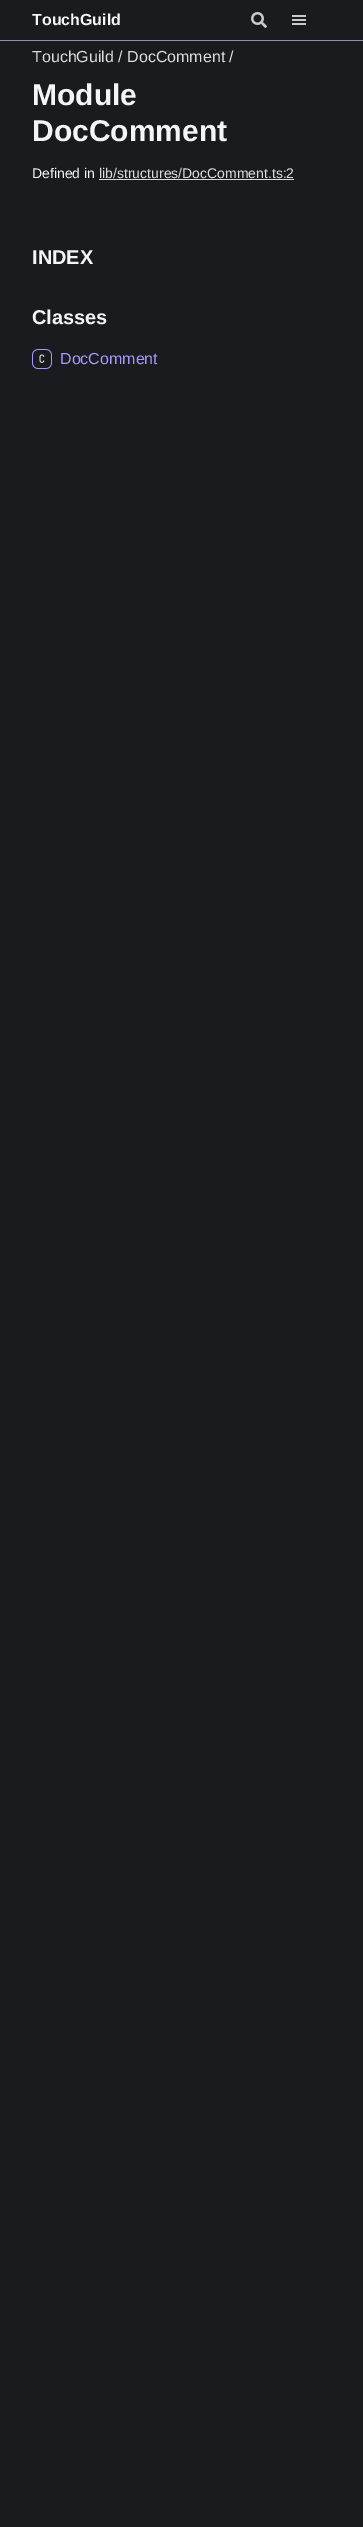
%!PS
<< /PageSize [363 2527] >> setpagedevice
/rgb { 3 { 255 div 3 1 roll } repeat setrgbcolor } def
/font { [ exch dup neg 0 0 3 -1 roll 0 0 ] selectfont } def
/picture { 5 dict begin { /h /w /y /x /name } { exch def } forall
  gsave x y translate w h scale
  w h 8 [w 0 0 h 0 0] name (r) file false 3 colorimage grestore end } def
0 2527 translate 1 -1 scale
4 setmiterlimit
24 28 31 rgb
0 0 363 2527 rectfill
155 133 177 rgb
0 40 363 1 rectfill
(img/1.rgb) 251 12 16 16 picture
[
  [292 15 14 2 201 202 202]
  [292 19 14 2 201 202 202]
  [292 23 14 2 201 202 202]
  [99 179 195 1 221 221 221]
] { aload pop rgb rectfill } forall
(img/2.rgb) 32 349 20 20 picture
/LiberationSans-Bold 16 font
245 245 245 rgb
32 25 moveto (TouchGuild) show
/LiberationSans-Regular 16 font
221 221 221 rgb
32 62 moveto (TouchGuild / DocComment /) show
/LiberationSans-Bold 30 font
245 245 245 rgb
32 105 moveto (Module) show
32 141 moveto (DocComment) show
/LiberationSans-Regular 14 font
32 178 moveto (Defined in) show
221 221 221 rgb
99 178 moveto (lib/structures/DocComment.ts:2) show
/LiberationSans-Bold 20 font
245 245 245 rgb
32 264 moveto (INDEX) show
32 324 moveto (Classes) show
/LiberationSans-Regular 16 font
166 152 255 rgb
60 364 moveto (DocComment) show
showpage
